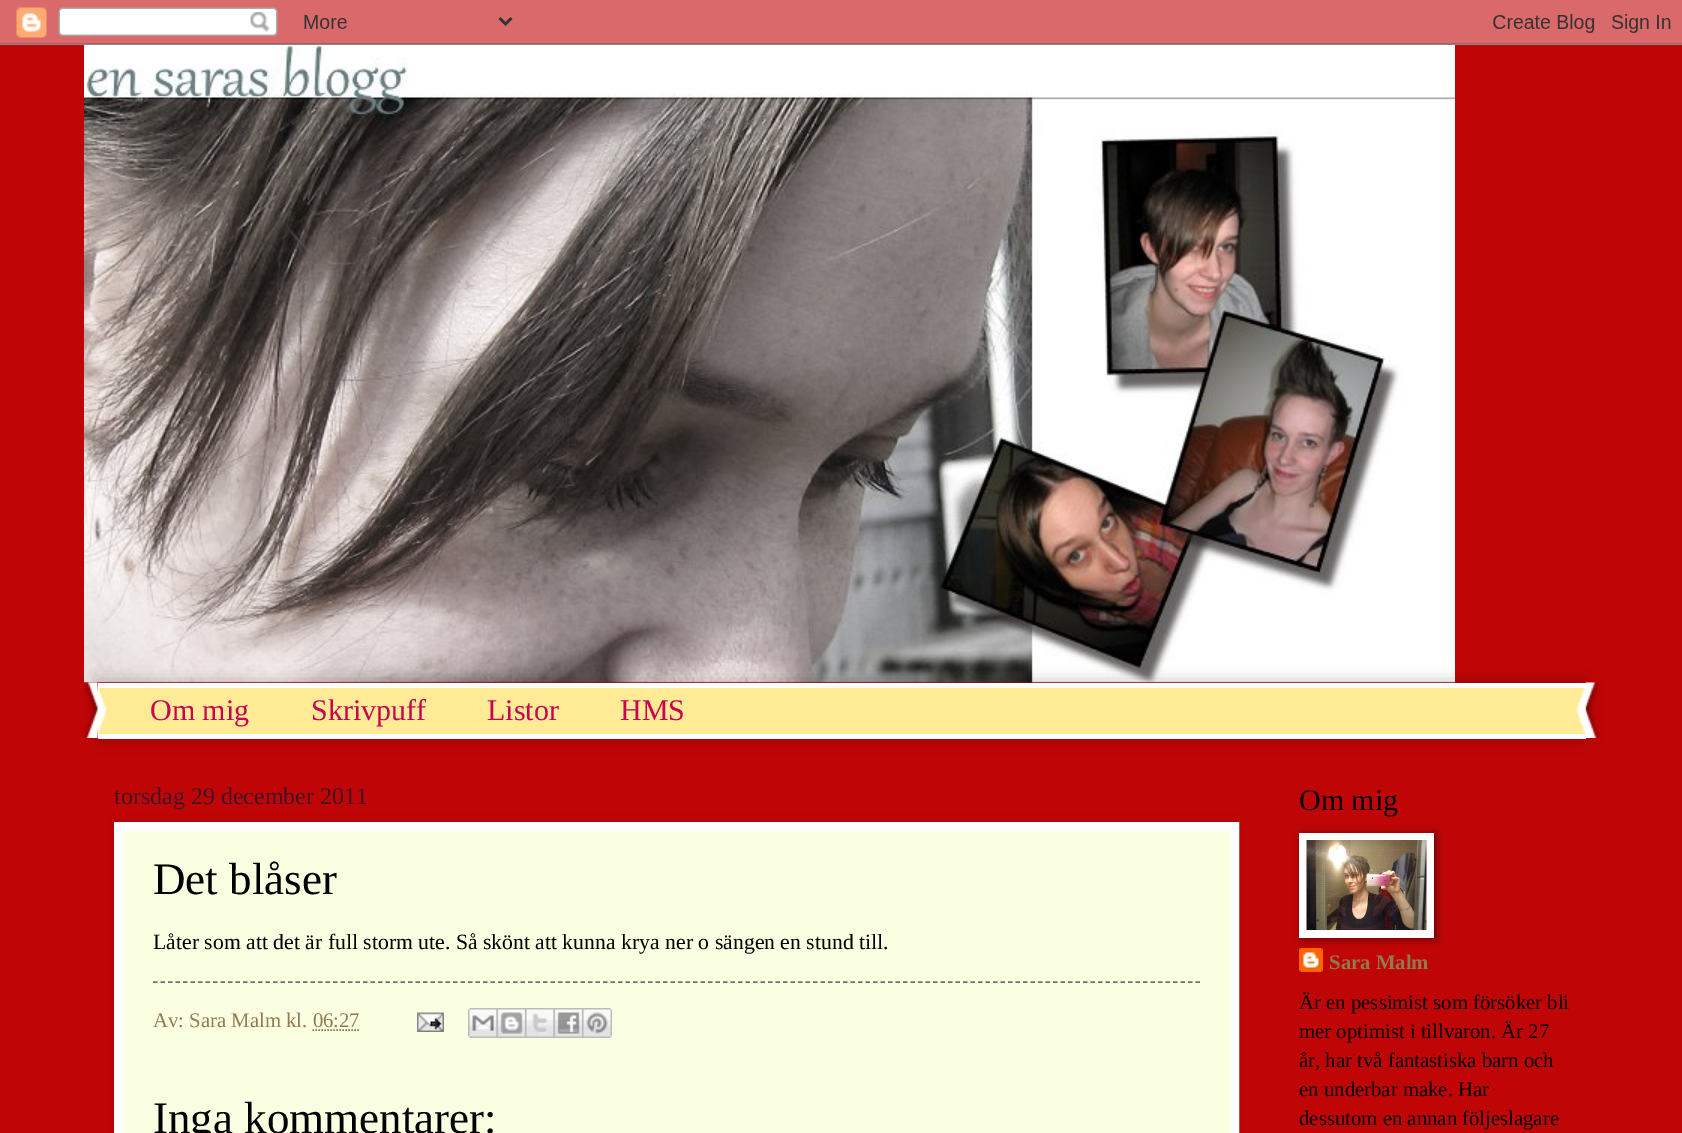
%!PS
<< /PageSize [1682 1133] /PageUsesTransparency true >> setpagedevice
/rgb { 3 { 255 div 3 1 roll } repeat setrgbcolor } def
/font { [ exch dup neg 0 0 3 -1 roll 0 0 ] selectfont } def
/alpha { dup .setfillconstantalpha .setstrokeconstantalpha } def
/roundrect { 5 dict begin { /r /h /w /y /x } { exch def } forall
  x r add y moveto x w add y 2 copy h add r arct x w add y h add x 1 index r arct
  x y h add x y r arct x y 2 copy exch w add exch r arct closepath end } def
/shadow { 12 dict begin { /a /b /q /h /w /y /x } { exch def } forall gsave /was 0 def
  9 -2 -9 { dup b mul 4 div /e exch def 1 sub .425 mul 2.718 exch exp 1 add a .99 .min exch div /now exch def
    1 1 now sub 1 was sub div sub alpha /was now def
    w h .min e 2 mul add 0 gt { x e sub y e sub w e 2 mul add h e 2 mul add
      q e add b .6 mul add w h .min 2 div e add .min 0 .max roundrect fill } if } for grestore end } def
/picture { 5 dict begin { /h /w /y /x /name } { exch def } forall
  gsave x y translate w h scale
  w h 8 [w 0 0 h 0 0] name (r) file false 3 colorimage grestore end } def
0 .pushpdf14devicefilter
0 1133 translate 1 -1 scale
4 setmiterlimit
191 5 6 rgb
0 0 1682 1133 rectfill
(img/1.rgb) 0 0 1682 45 picture
(img/2.rgb) 84 45 1371 638 picture
0 0 0 rgb
98 683 1488 55 0 7.5 0.3 shadow
[
  [98 688 1488 46 255 235 149]
  [98 683 1488 5 255 255 255]
  [98 734 1488 5 255 255 255]
] { aload pop rgb rectfill } forall
(img/3.rgb) 1576 682 25 56 picture
(img/4.rgb) 82 682 25 56 picture
0 0 0 rgb
114 822 1125 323 0 4 0.1 shadow
250 255 226 rgb
118.5 826.5 moveto 1234.5 826.5 lineto 1234.5 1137.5 lineto 118.5 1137.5 lineto closepath gsave fill grestore
255 255 255 rgb
9 setlinewidth
stroke
112 112 112 rgb
1.5 setlinewidth
[4.5 3] 0 setdash
153 982 moveto 1200 982 lineto stroke
(img/5.rgb) 417 1012 27 20 picture
(img/6.rgb) 468 1008 29 30 picture
(img/7.rgb) 496 1008 29 30 picture
(img/8.rgb) 525 1008 29 30 picture
(img/9.rgb) 553 1008 29 30 picture
(img/10.rgb) 582 1008 30 30 picture
145 122 80 rgb
[1.5 1.5] 0 setdash
312.5 1030 moveto 359.5 1030 lineto stroke
(img/12.rgb) 1299 948 24 24 picture
0 0 0 rgb
1301 834 135 105 0 4 0.5 shadow
255 255 255 rgb
1299 833 135 105 rectfill
(img/11.rgb) 1306 840 121 90 picture
/LiberationSerif-Regular 30 font
201 0 83 rgb
[
  [(Om mig) 150 720]
  [(Skrivpuff) 311 720]
  [(Listor) 487 720]
  [(HMS) 620 720]
] { aload pop moveto show } forall
/LiberationSerif-Regular 24 font
62 20 35 rgb
114 804 moveto (torsdag 29 december 2011) show
/LiberationSerif-Regular 45 font
0 0 0 rgb
153 894 moveto (Det blåser) show
/LiberationSerif-Regular 21.75 font
153 949 moveto (Låter som att det är full storm ute. Så skönt att kunna krya ner o sängen en stund till.) show
/LiberationSerif-Regular 20.75 font
145 122 80 rgb
153 1027 moveto (Av: Sara Malm kl. 06:27) show
/LiberationSerif-Regular 45 font
0 0 0 rgb
153 1133 moveto (Inga kommentarer:) show
/LiberationSerif-Regular 30 font
1299 810 moveto (Om mig) show
/LiberationSerif-Bold 20.75 font
145 122 80 rgb
1329 969 moveto (Sara Malm) show
/LiberationSerif-Regular 20.75 font
0 0 0 rgb
[
  [(Är en pessimist som försöker bli) 1299 1009]
  [(mer optimist i tillvaron. Är 27) 1299 1038]
  [(år, har två fantastiska barn och) 1299 1067]
  [(en underbar make. Har) 1299 1096]
  [(dessutom en annan följeslagare) 1299 1125]
] { aload pop moveto show } forall
.poppdf14devicefilter showpage
